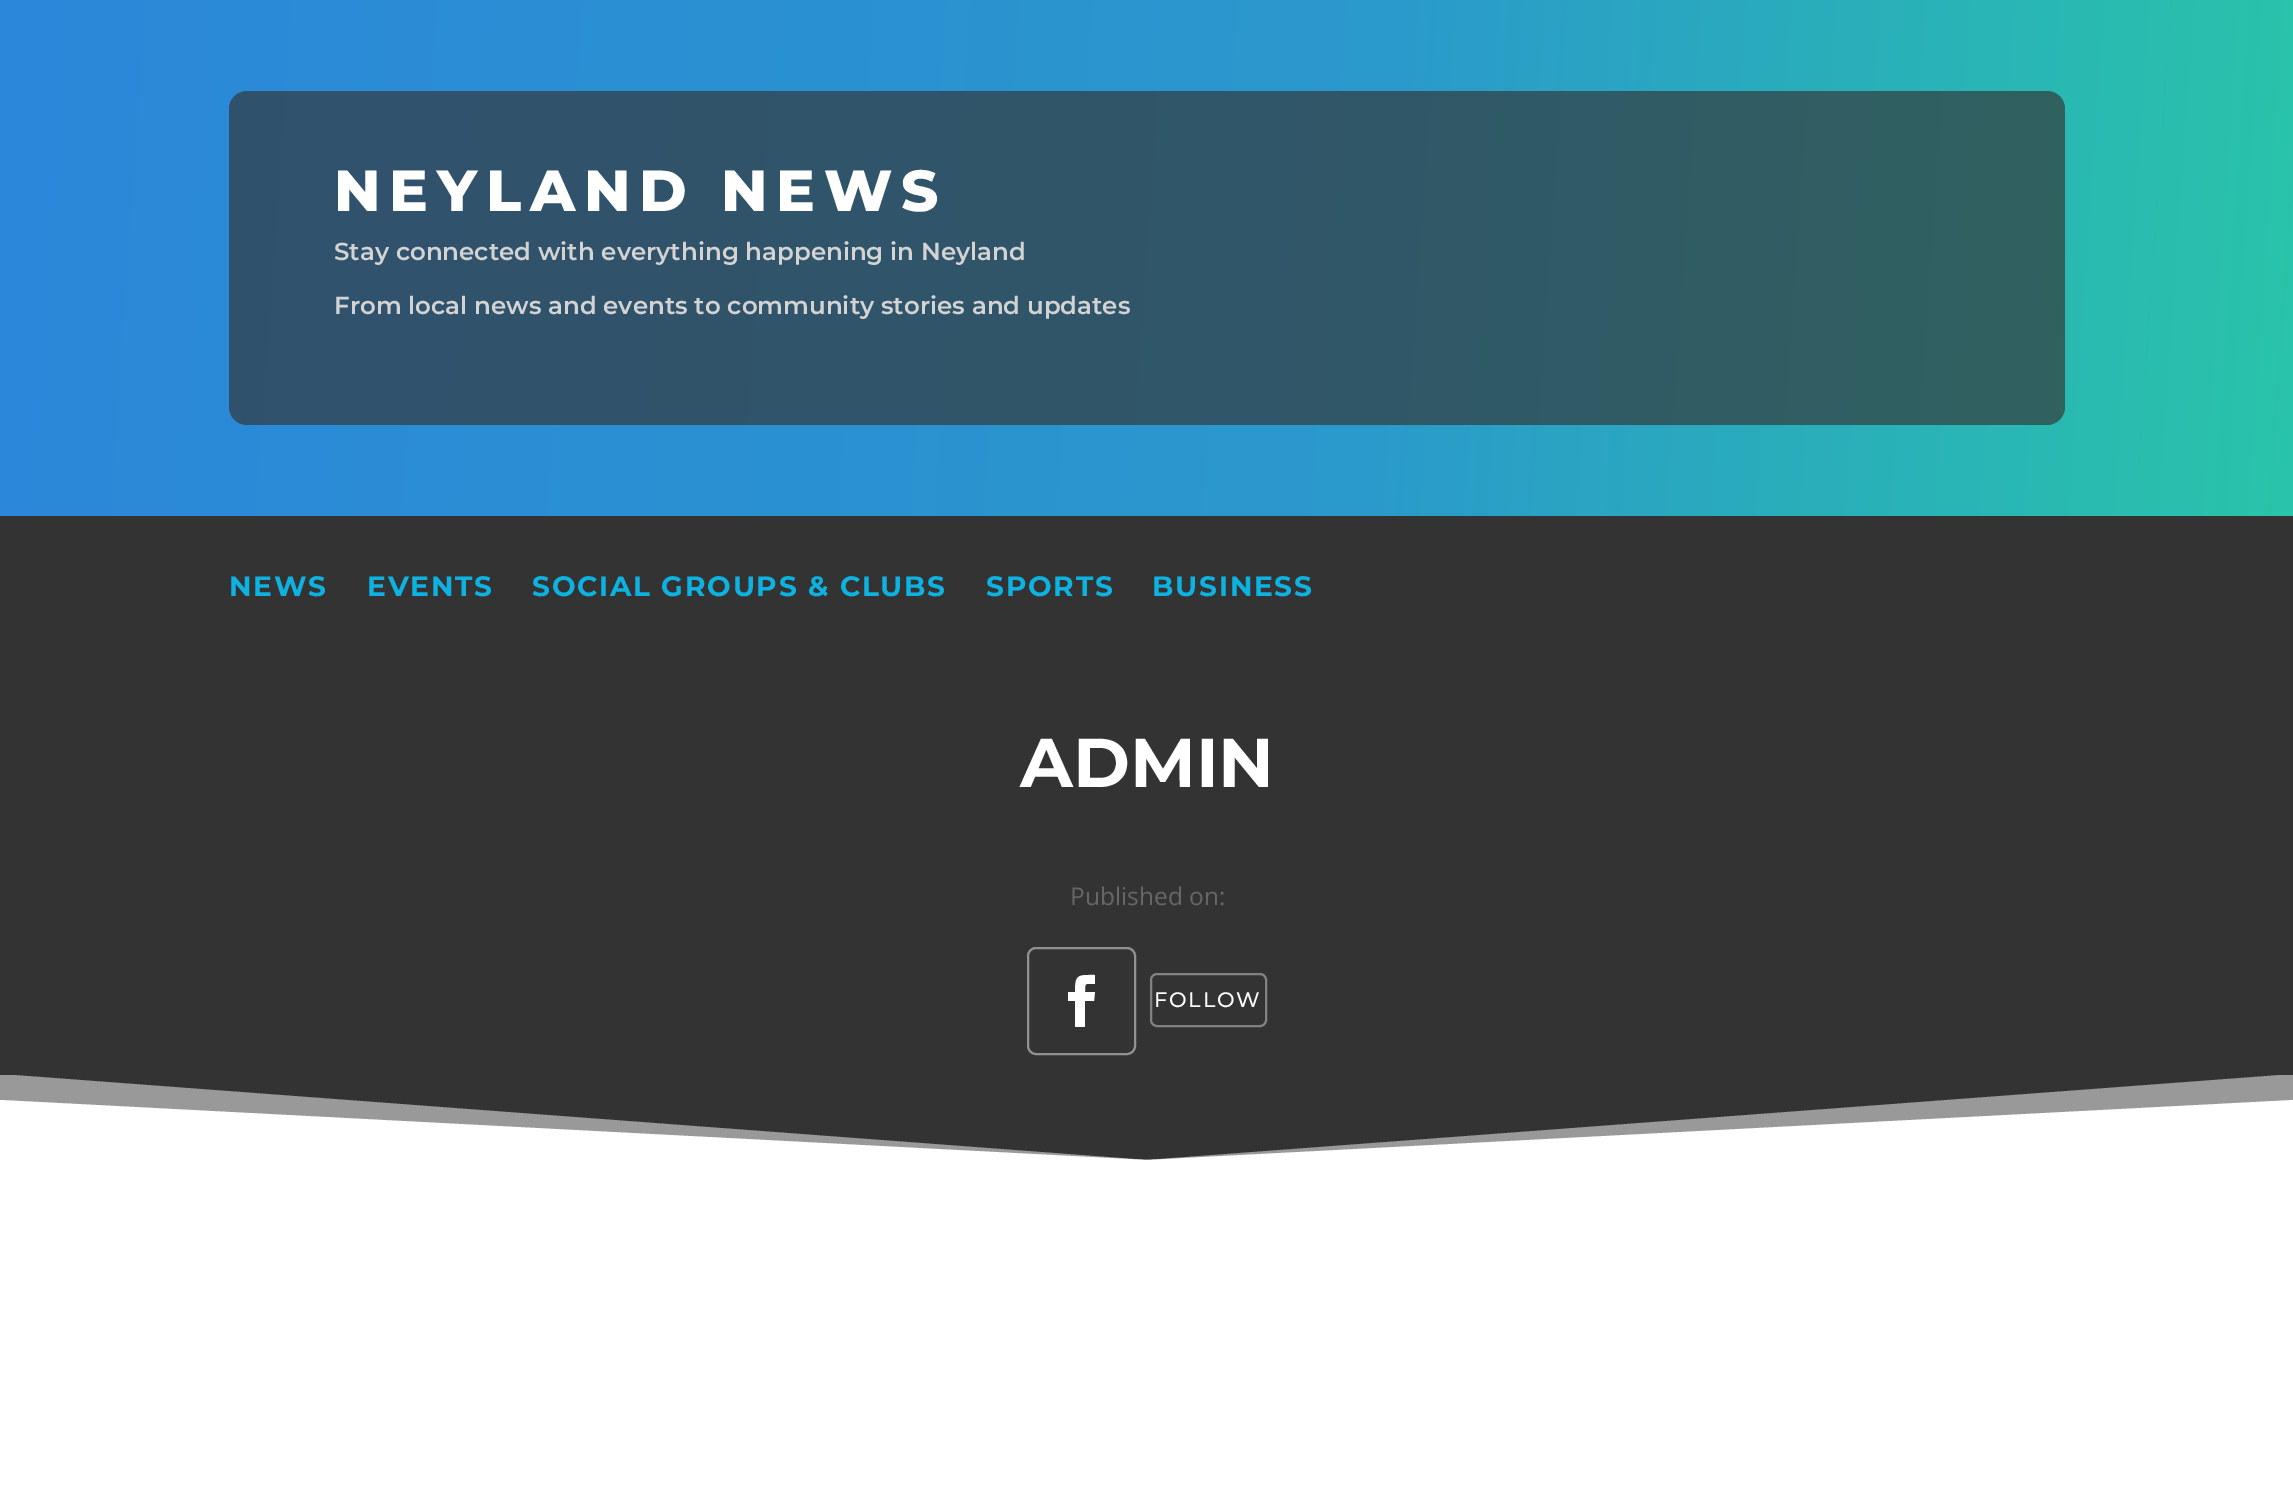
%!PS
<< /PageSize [2293 1501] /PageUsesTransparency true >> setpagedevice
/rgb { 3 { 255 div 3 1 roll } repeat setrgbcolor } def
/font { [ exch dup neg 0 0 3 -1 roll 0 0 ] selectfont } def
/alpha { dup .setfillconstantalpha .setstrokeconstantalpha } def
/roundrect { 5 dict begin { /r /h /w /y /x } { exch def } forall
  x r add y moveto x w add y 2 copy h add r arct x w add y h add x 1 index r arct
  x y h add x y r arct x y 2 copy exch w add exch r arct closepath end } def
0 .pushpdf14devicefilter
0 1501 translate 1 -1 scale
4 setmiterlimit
255 255 255 rgb
0 0 2293 1501 rectfill
gsave 0 0 moveto 2293 0 lineto 2293 516 lineto 0 516 lineto closepath clip newpath
<< /ShadingType 2 /ColorSpace /DeviceRGB /Coords [-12 177 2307 339] /Extend [true true] /Function << /FunctionType 3 /Domain [0 1] /Functions [<< /FunctionType 2 /Domain [0 1] /C0 [0.169 0.529 0.855] /C1 [0.165 0.6 0.8] /N 1 >> << /FunctionType 2 /Domain [0 1] /C0 [0.165 0.6 0.8] /C1 [0.161 0.769 0.663] /N 1 >>] /Bounds [0.59] /Encode [0 1 0 1] >> >> shfill grestore
0.65 alpha
51 51 51 rgb
229 91 1836 334 18 roundrect fill
1 alpha
0 516 2293 644 rectfill
145 145 145 rgb
2 setlinewidth
1028 948 107 106 8 roundrect stroke
255 255 255 rgb
1075 1027 moveto 1085 1027 lineto 1085 1001 lineto 1094 1001 lineto 1095 992 lineto 1085 992 lineto 1085 982 1085 984 1095 984 curveto 1095 975 lineto 1078 975 1075 974 1075 992 curveto 1068 992 lineto 1068 1001 lineto 1075 1001 lineto closepath fill
130 130 130 rgb
1151 974 115 52 6 roundrect stroke
gsave
0 1075 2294 85 rectclip
153 153 153 rgb
1147 1160 moveto 0 1074 lineto 0 1160 lineto 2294 1160 lineto 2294 1074 lineto closepath fill
grestore
255 255 255 rgb
1147 1160 moveto 0 1100 lineto 0 1160 lineto 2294 1160 lineto 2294 1100 lineto closepath fill
/Montserrat-ExtraBold 57.75 font
334 211 moveto 8.75 0 (NEYLAND NEWS) ashow
/Montserrat-SemiBold 24.5 font
211 211 211 rgb
334 260 moveto (Stay connected with everything happening in Neyland) show
334 314 moveto (From local news and events to community stories and updates) show
/Montserrat-Bold 28 font
13 178 224 rgb
229 596 moveto 1.75 0 (NEWS) ashow
367 596 moveto 1.75 0 (EVENTS) ashow
532 596 moveto 1.75 0 (SOCIAL GROUPS & CLUBS) ashow
986 596 moveto 1.75 0 (SPORTS) ashow
1152 596 moveto 1.75 0 (BUSINESS) ashow
/Montserrat-Bold 69 font
255 255 255 rgb
1020 787 moveto (ADMIN) show
/OpenSans-Regular 24.5 font
102 102 102 rgb
1070 905 moveto (Published on:) show
/Montserrat-Medium 21 font
255 255 255 rgb
1154 1007 moveto 1.75 0 (FOLLOW) ashow
.poppdf14devicefilter showpage
